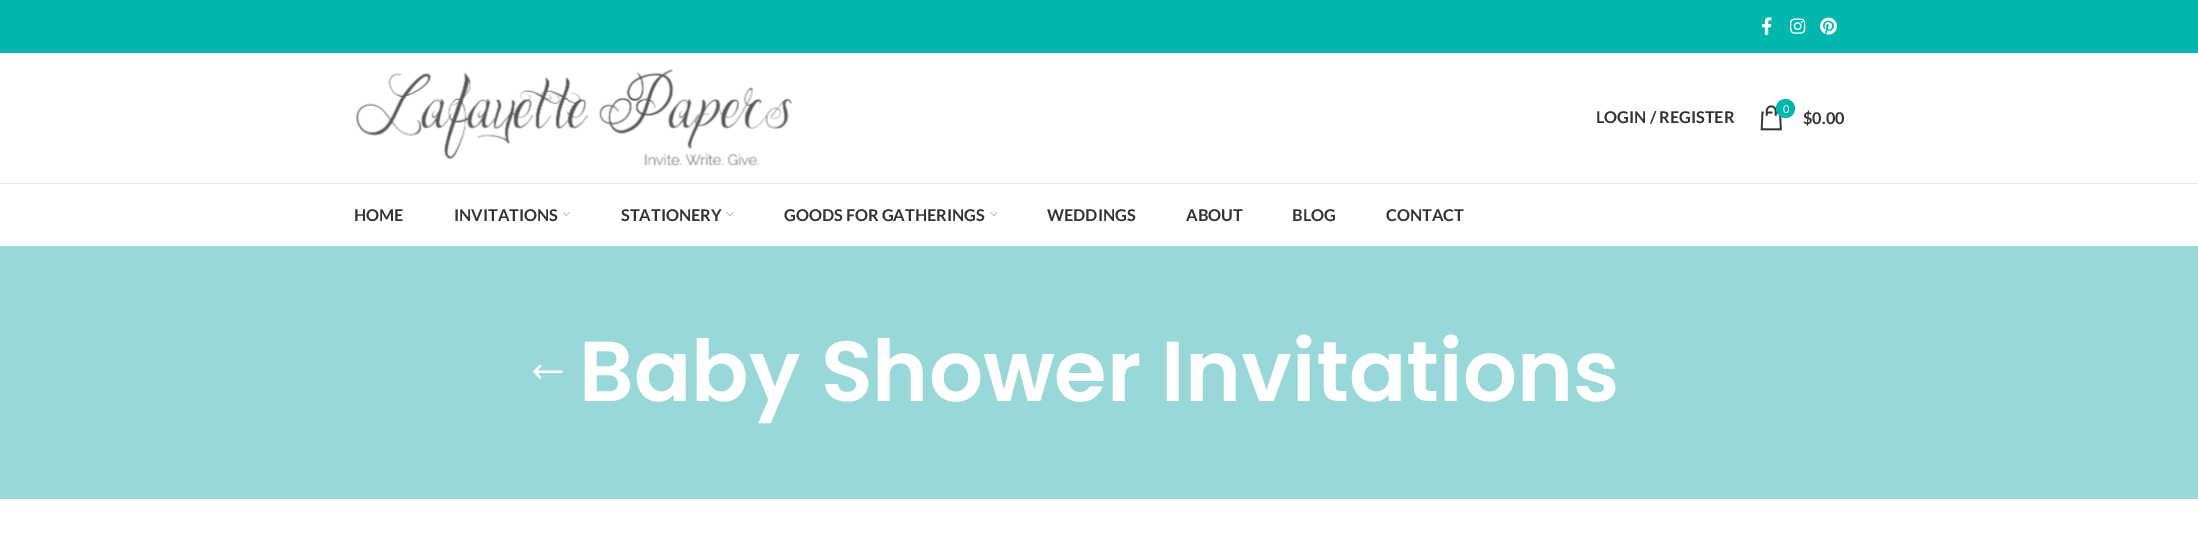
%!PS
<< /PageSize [2198 534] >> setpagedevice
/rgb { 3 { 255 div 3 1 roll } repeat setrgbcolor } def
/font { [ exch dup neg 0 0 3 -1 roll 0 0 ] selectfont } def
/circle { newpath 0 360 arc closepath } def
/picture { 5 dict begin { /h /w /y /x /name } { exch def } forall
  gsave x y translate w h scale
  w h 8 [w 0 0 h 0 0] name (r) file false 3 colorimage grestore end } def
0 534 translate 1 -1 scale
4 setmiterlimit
255 255 255 rgb
0 0 2198 534 rectfill
0 183 174 rgb
0 0 2198 53 rectfill
(img/1.rgb) 1762 17 10 18 picture
(img/2.rgb) 1790 18 16 16 picture
(img/3.rgb) 1820 17 17 18 picture
230 230 230 rgb
0 183 2198 1 rectfill
(img/4.rgb) 355 69 437 97 picture
(img/5.rgb) 1760 105 22 26 picture
0 183 174 rgb
1785.5 108.5 9.5 circle fill
(img/6.rgb) 562 212 8 4 picture
(img/7.rgb) 726 212 8 4 picture
(img/8.rgb) 990 212 8 4 picture
152 216 216 rgb
0 246 2198 253 rectfill
255 255 255 rgb
541.5 377.5 moveto 537.5 373 lineto 562.5 373 lineto 562.5 370.5 lineto 537.5 370.5 lineto 541.5 366 lineto 540 364.5 lineto 533 371.5 lineto 540 379 lineto closepath fill
/Lato-Bold 16.25 font
51 51 51 rgb
1596 123 moveto (LOGIN / REGISTER) show
/Lato-Regular 11 font
255 255 255 rgb
1783 113 moveto (0) show
/Lato-Bold 16.25 font
51 51 51 rgb
[
  [($0.00) 1803 124]
  [(HOME) 354 221]
  [(INVITATIONS) 454 221]
  [(STATIONERY) 621 221]
  [(GOODS FOR GATHERINGS) 784 221]
  [(WEDDINGS) 1047 221]
  [(ABOUT) 1186 221]
  [(BLOG) 1292 221]
  [(CONTACT) 1386 221]
] { aload pop moveto show } forall
/Poppins-SemiBold 85 font
255 255 255 rgb
579 401 moveto (Baby Shower Invitations) show
showpage
